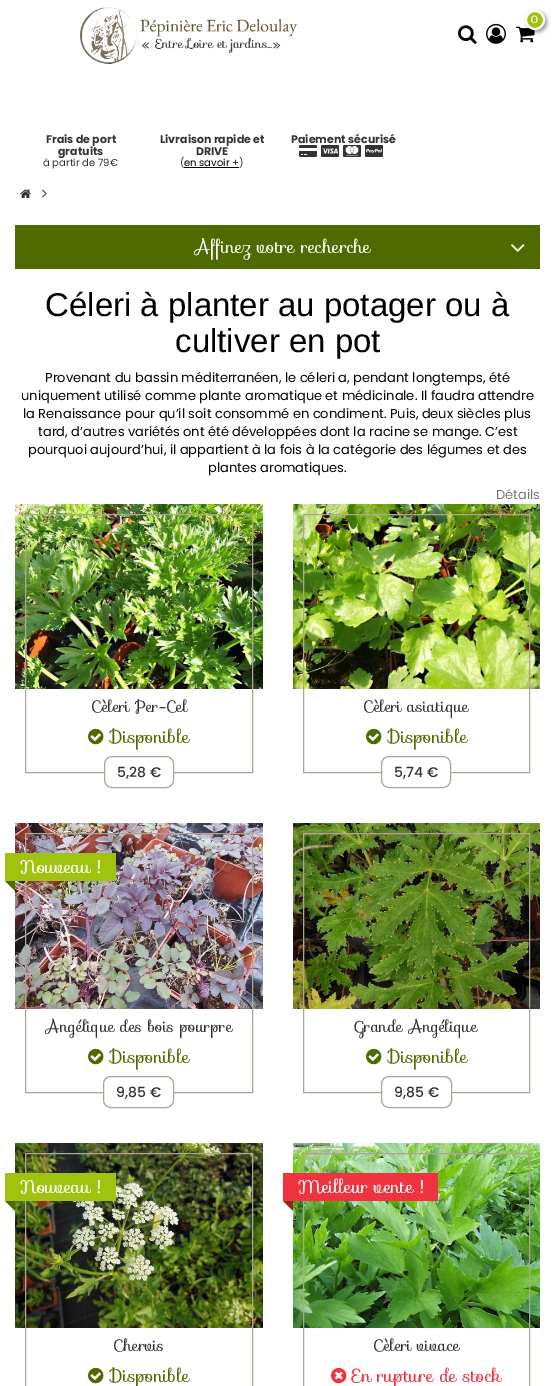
%!PS
<< /PageSize [555 1386] /PageUsesTransparency true >> setpagedevice
/rgb { 3 { 255 div 3 1 roll } repeat setrgbcolor } def
/font { [ exch dup neg 0 0 3 -1 roll 0 0 ] selectfont } def
/alpha { dup .setfillconstantalpha .setstrokeconstantalpha } def
/circle { newpath 0 360 arc closepath } def
/roundrect { 5 dict begin { /r /h /w /y /x } { exch def } forall
  x r add y moveto x w add y 2 copy h add r arct x w add y h add x 1 index r arct
  x y h add x y r arct x y 2 copy exch w add exch r arct closepath end } def
/shadow { 12 dict begin { /a /b /q /h /w /y /x } { exch def } forall gsave /was 0 def
  9 -2 -9 { dup b mul 4 div /e exch def 1 sub .425 mul 2.718 exch exp 1 add a .99 .min exch div /now exch def
    1 1 now sub 1 was sub div sub alpha /was now def
    w h .min e 2 mul add 0 gt { x e sub y e sub w e 2 mul add h e 2 mul add
      q e add b .6 mul add w h .min 2 div e add .min 0 .max roundrect fill } if } for grestore end } def
/picture { 5 dict begin { /h /w /y /x /name } { exch def } forall
  gsave x y translate w h scale
  w h 8 [w 0 0 h 0 0] name (r) file false 3 colorimage grestore end } def
0 .pushpdf14devicefilter
0 1386 translate 1 -1 scale
4 setmiterlimit
255 255 255 rgb
0 0 555 1386 rectfill
(img/1.rgb) 80 7 218 57 picture
(img/2.rgb) 516 26 19 17 picture
0 0 0 rgb
527 12 20 20 10 2 0.4 shadow
159 195 15 rgb
535 20 9 circle gsave fill grestore
255 255 255 rgb
2 setlinewidth
stroke
(img/3.rgb) 458 25 19 19 picture
(img/4.rgb) 486 23 20 21 picture
(img/5.rgb) 299 145 18 12 picture
(img/6.rgb) 321 145 18 12 picture
(img/7.rgb) 343 145 18 12 picture
(img/8.rgb) 365 145 18 12 picture
(img/9.rgb) 20 189 11 9 picture
(img/10.rgb) 42 189 5 9 picture
80 106 0 rgb
15 225 525 44 rectfill
(img/11.rgb) 511 244 14 8 picture
(img/12.rgb) 15 504 248 185 picture
(img/13.rgb) 88 728 16 17 picture
173 165 148 rgb
1 setlinewidth
25.5 514.5 227 258 rectstroke
255 255 255 rgb
104.5 756.5 69 31 7.5 roundrect gsave fill grestore
173 165 148 rgb
stroke
(img/14.rgb) 293 504 247 185 picture
(img/13.rgb) 366 728 16 17 picture
303.5 514.5 226 258 rectstroke
255 255 255 rgb
381.5 756.5 69 31 7.5 roundrect gsave fill grestore
173 165 148 rgb
stroke
(img/15.rgb) 15 823 248 186 picture
(img/13.rgb) 88 1048 16 17 picture
25.5 833.5 227 259 rectstroke
159 195 15 rgb
5 853 111 28 rectfill
80 106 0 rgb
15 881 moveto 15 891 lineto 5 881 lineto closepath fill
255 255 255 rgb
103.5 1076.5 70 31 7.5 roundrect gsave fill grestore
173 165 148 rgb
stroke
(img/16.rgb) 293 823 247 186 picture
(img/13.rgb) 366 1048 16 17 picture
303.5 833.5 226 259 rectstroke
255 255 255 rgb
381.5 1076.5 70 31 7.5 roundrect gsave fill grestore
173 165 148 rgb
stroke
(img/17.rgb) 15 1143 248 185 picture
(img/13.rgb) 88 1367 16 17 picture
25.5 1153.5 227 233 rectstroke
159 195 15 rgb
5 1173 111 28 rectfill
80 106 0 rgb
15 1201 moveto 15 1211 lineto 5 1201 lineto closepath fill
(img/18.rgb) 293 1143 247 185 picture
(img/19.rgb) 331 1367 16 17 picture
173 165 148 rgb
303.5 1153.5 226 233 rectstroke
241 51 64 rgb
283 1173 155 28 rectfill
151 36 29 rgb
293 1201 moveto 293 1211 lineto 283 1201 lineto closepath fill
/Sofia-Bold 10 font
255 255 255 rgb
530 23 moveto (0) show
/Poppins-Bold 11 font
51 51 51 rgb
46 143 moveto (Frais de port) show
58 155 moveto (gratuits) show
/Poppins-Regular 10 font
43 166 moveto (à partir de 79€) show
/Poppins-Bold 11 font
160 143 moveto (Livraison rapide et) show
196 155 moveto (DRIVE) show
/Poppins-Regular 10 font
180 166 moveto (\() show
0 0 0 rgb
184 166 moveto (en savoir +) show
184 167 55 1 rectfill
51 51 51 rgb
239 166 moveto (\)) show
/Poppins-Bold 11 font
291 143 moveto (Paiement sécurisé) show
/Sofia-Regular 18 font
255 255 255 rgb
195 253 moveto (Affinez votre recherche) show
/LiberationSans-Regular 33 font
0 0 0 rgb
45 316 moveto (Céleri à planter au potager ou à) show
175 352 moveto (cultiver en pot) show
/Poppins-Regular 13 font
[
  [(Provenant du bassin méditerranéen, le céleri a, pendant longtemps, été) 45 382]
  [(uniquement utilisé comme plante aromatique et médicinale. Il faudra attendre) 21 400]
  [(la Renaissance pour qu’il soit consommé en condiment. Puis, deux siècles plus) 23 418]
  [(tard, d’autres variétés ont été développées dont la racine se mange. C’est) 38 436]
  [(pourquoi aujourd’hui, il appartient à la fois à la catégorie des légumes et des) 28 454]
  [(plantes aromatiques.) 208 472]
] { aload pop moveto show } forall
119 119 119 rgb
496 499 moveto (Détails) show
/Sofia-Regular 16 font
51 51 51 rgb
91 712 moveto (Cèleri Per-Cel) show
/Sofia-Regular 18 font
80 106 0 rgb
110 743 moveto (Disponible) show
/Poppins-Medium 14 font
51 51 51 rgb
117 777 moveto (5,28 €) show
/Sofia-Regular 16 font
363 712 moveto (Cèleri asiatique) show
/Sofia-Regular 18 font
80 106 0 rgb
388 743 moveto (Disponible) show
/Poppins-Medium 14 font
51 51 51 rgb
394 777 moveto (5,74 €) show
/Sofia-Regular 18 font
255 255 255 rgb
20 873 moveto (Nouveau !) show
/Sofia-Regular 16 font
51 51 51 rgb
46 1032 moveto (Angélique des bois pourpre) show
/Sofia-Regular 18 font
80 106 0 rgb
110 1063 moveto (Disponible) show
/Poppins-Medium 14 font
51 51 51 rgb
116 1097 moveto (9,85 €) show
/Sofia-Regular 16 font
355 1032 moveto (Grande Angélique) show
/Sofia-Regular 18 font
80 106 0 rgb
388 1063 moveto (Disponible) show
/Poppins-Medium 14 font
51 51 51 rgb
394 1097 moveto (9,85 €) show
/Sofia-Regular 18 font
255 255 255 rgb
20 1193 moveto (Nouveau !) show
/Sofia-Regular 16 font
51 51 51 rgb
113 1351 moveto (Chervis) show
/Sofia-Regular 18 font
80 106 0 rgb
110 1382 moveto (Disponible) show
255 255 255 rgb
298 1193 moveto (Meilleur vente !) show
/Sofia-Regular 16 font
51 51 51 rgb
373 1351 moveto (Cèleri vivace) show
/Sofia-Regular 18 font
241 51 64 rgb
352 1382 moveto (En rupture de stock) show
.poppdf14devicefilter showpage
